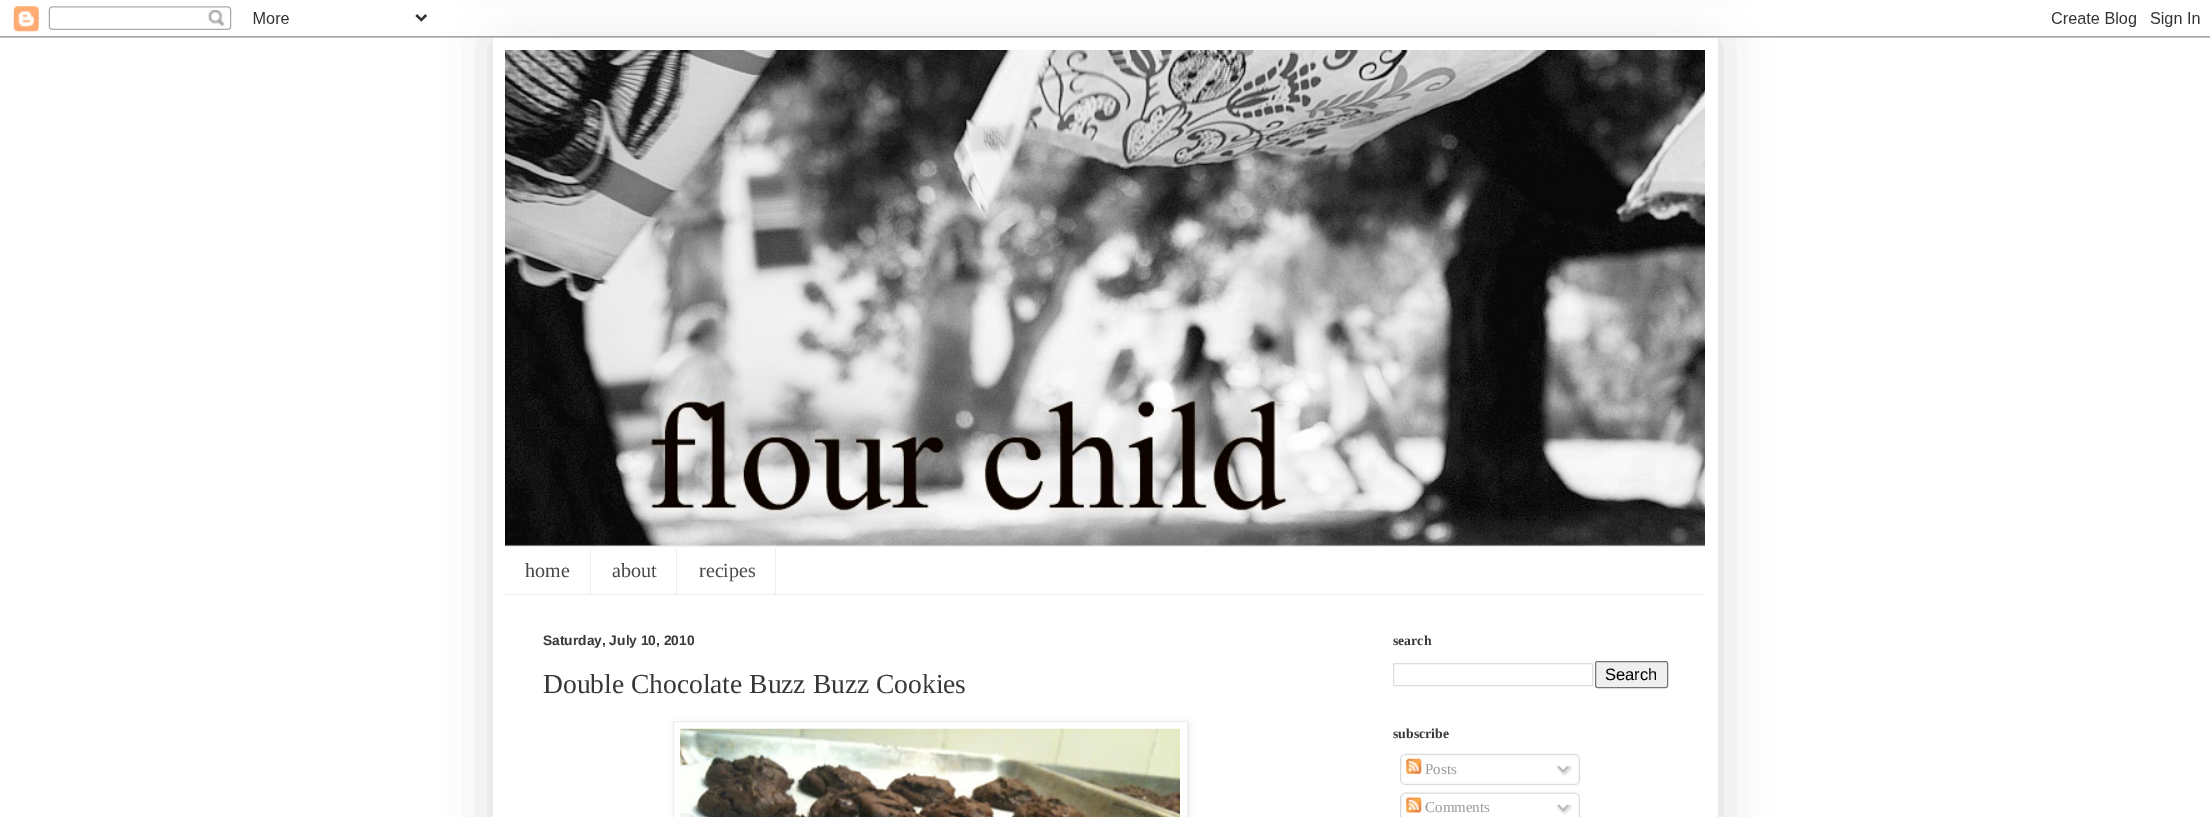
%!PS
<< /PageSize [2210 817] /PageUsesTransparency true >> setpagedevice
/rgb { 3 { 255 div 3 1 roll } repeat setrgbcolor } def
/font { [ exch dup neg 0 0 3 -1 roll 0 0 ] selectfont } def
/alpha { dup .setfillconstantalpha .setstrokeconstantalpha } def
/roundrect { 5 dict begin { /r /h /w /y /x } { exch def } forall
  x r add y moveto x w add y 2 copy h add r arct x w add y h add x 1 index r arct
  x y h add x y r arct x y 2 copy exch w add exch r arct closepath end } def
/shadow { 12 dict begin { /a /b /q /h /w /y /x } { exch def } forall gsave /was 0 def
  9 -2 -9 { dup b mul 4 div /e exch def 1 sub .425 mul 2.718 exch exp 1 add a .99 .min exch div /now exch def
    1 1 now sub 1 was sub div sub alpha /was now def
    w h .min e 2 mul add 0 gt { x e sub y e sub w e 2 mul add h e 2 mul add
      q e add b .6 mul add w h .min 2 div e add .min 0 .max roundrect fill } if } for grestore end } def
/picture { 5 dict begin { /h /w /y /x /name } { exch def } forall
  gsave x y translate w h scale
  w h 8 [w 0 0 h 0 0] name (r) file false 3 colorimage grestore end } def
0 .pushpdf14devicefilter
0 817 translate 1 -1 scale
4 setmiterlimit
255 255 255 rgb
0 0 2210 817 rectfill
0 0 0 rgb
493 38 1225 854 0 25 0.15 shadow
(img/1.rgb) 0 6 2210 32 picture
255 255 255 rgb
493 38 1225 779 rectfill
(img/2.rgb) 505 50 1200 496 picture
[
  [505 546 1200 1 238 238 238]
  [505 594 1200 1 238 238 238]
  [590 548 1 46 238 238 238]
  [676 548 1 46 238 238 238]
  [775 548 1 46 238 238 238]
] { aload pop rgb rectfill } forall
0 0 0 rgb
674 723 515 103 0 3 0.1 shadow
255 255 255 rgb
673.5 721.5 moveto 1187.5 721.5 lineto 1187.5 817.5 lineto 673.5 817.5 lineto closepath gsave fill grestore
238 238 238 rgb
stroke
(img/3.rgb) 680 728 500 89 picture
221 221 221 rgb
1393.5 663.5 199 22 rectstroke
239 239 239 rgb
1595.5 661.5 72 26 2 roundrect gsave fill grestore
118 118 118 rgb
stroke
(img/4.rgb) 1400 753 180 29 picture
(img/5.rgb) 1406 758 16 16 picture
(img/6.rgb) 1556 765 17 11 picture
(img/7.rgb) 1400 781 180 4 picture
(img/8.rgb) 1400 792 180 25 picture
(img/9.rgb) 1406 797 16 16 picture
(img/10.rgb) 1556 804 17 11 picture
/LiberationSerif-Regular 20 font
72 73 74 rgb
[
  [(home) 525 577]
  [(about) 612 577]
  [(recipes) 699 577]
] { aload pop moveto show } forall
/LiberationSans-Bold 13.75 font
55 56 57 rgb
543 645 moveto (Saturday, July 10, 2010) show
/LiberationSerif-Regular 27.5 font
543 693 moveto (Double Chocolate Buzz Buzz Cookies) show
/LiberationSerif-Bold 13.75 font
1393 645 moveto (search) show
/LiberationSans-Regular 16.5 font
0 0 0 rgb
1605 680 moveto (Search) show
/LiberationSerif-Bold 13.75 font
55 56 57 rgb
1393 738 moveto (subscribe) show
/LiberationSerif-Regular 15 font
153 153 153 rgb
1425 774 moveto (Posts) show
1425 812 moveto (Comments) show
.poppdf14devicefilter showpage
